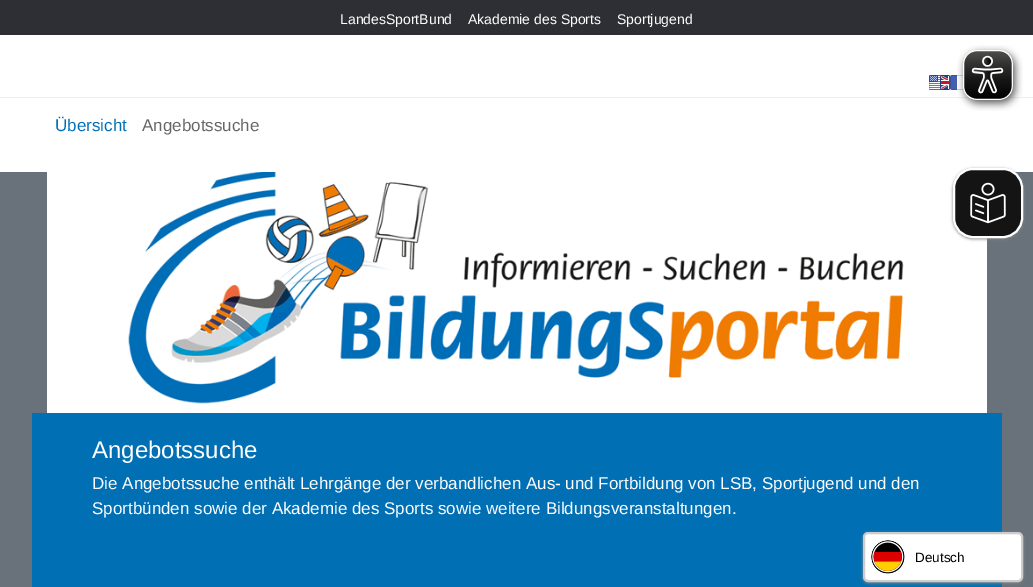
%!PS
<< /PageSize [1033 587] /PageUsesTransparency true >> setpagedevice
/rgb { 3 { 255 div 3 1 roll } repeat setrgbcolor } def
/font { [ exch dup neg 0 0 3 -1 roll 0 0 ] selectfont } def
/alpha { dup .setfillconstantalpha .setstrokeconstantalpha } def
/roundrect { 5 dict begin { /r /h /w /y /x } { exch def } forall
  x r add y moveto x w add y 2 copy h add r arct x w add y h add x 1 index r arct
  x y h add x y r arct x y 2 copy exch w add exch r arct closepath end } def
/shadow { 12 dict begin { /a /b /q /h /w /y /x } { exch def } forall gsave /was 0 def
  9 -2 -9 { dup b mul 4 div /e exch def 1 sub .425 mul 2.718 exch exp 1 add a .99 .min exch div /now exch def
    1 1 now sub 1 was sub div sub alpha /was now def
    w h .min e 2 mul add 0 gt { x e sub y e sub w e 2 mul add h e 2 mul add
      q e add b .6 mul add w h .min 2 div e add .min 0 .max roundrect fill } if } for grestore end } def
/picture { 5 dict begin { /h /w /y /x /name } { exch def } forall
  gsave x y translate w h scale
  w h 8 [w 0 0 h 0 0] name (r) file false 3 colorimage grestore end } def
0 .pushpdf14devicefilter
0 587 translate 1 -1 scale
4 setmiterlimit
105 114 123 rgb
0 0 1033 587 rectfill
46 47 52 rgb
0 0 1033 35 rectfill
(img/1.rgb) 47 172 940 241 picture
0 111 180 rgb
32 413 970 174 rectfill
255 255 255 rgb
0 35 1033 137 rectfill
(img/4.rgb) 950 75 15 15 picture
238 238 238 rgb
0 97 1033 1 rectfill
(img/2.rgb) 957 45 66 66 picture
(img/3.rgb) 929 75 21 15 picture
132 132 132 rgb
953 169 70 70 20 1.5 1 shadow
21 20 20 rgb
954 169 68 68 19 roundrect gsave fill grestore
255 255 255 rgb
2 setlinewidth
stroke
(img/5.rgb) 970 182 36 42 picture
132 132 132 rgb
863 533 160 50 5 1.5 1 shadow
255 255 255 rgb
864 533 158 48 4 roundrect gsave fill grestore
204 204 204 rgb
stroke
(img/6.rgb) 871 540 34 34 picture
/LiberationSans-Regular 14 font
255 255 255 rgb
[
  [(LandesSportBund) 340 24]
  [(Akademie des Sports) 468 24]
  [(Sportjugend) 617 24]
] { aload pop moveto show } forall
/LiberationSans-Regular 24 font
92 458 moveto (Angebotssuche) show
/LiberationSans-Regular 17 font
92 489 moveto (Die Angebotssuche enthält Lehrgänge der verbandlichen Aus- und Fortbildung von LSB, Sportjugend und den) show
92 514 moveto (Sportbünden sowie der Akademie des Sports sowie weitere Bildungsveranstaltungen.) show
0 111 180 rgb
55 131 moveto (Übersicht) show
102 102 102 rgb
142 131 moveto (Angebotssuche) show
/LiberationSans-Regular 13.5 font
0 0 0 rgb
915 562 moveto (Deutsch) show
.poppdf14devicefilter showpage
